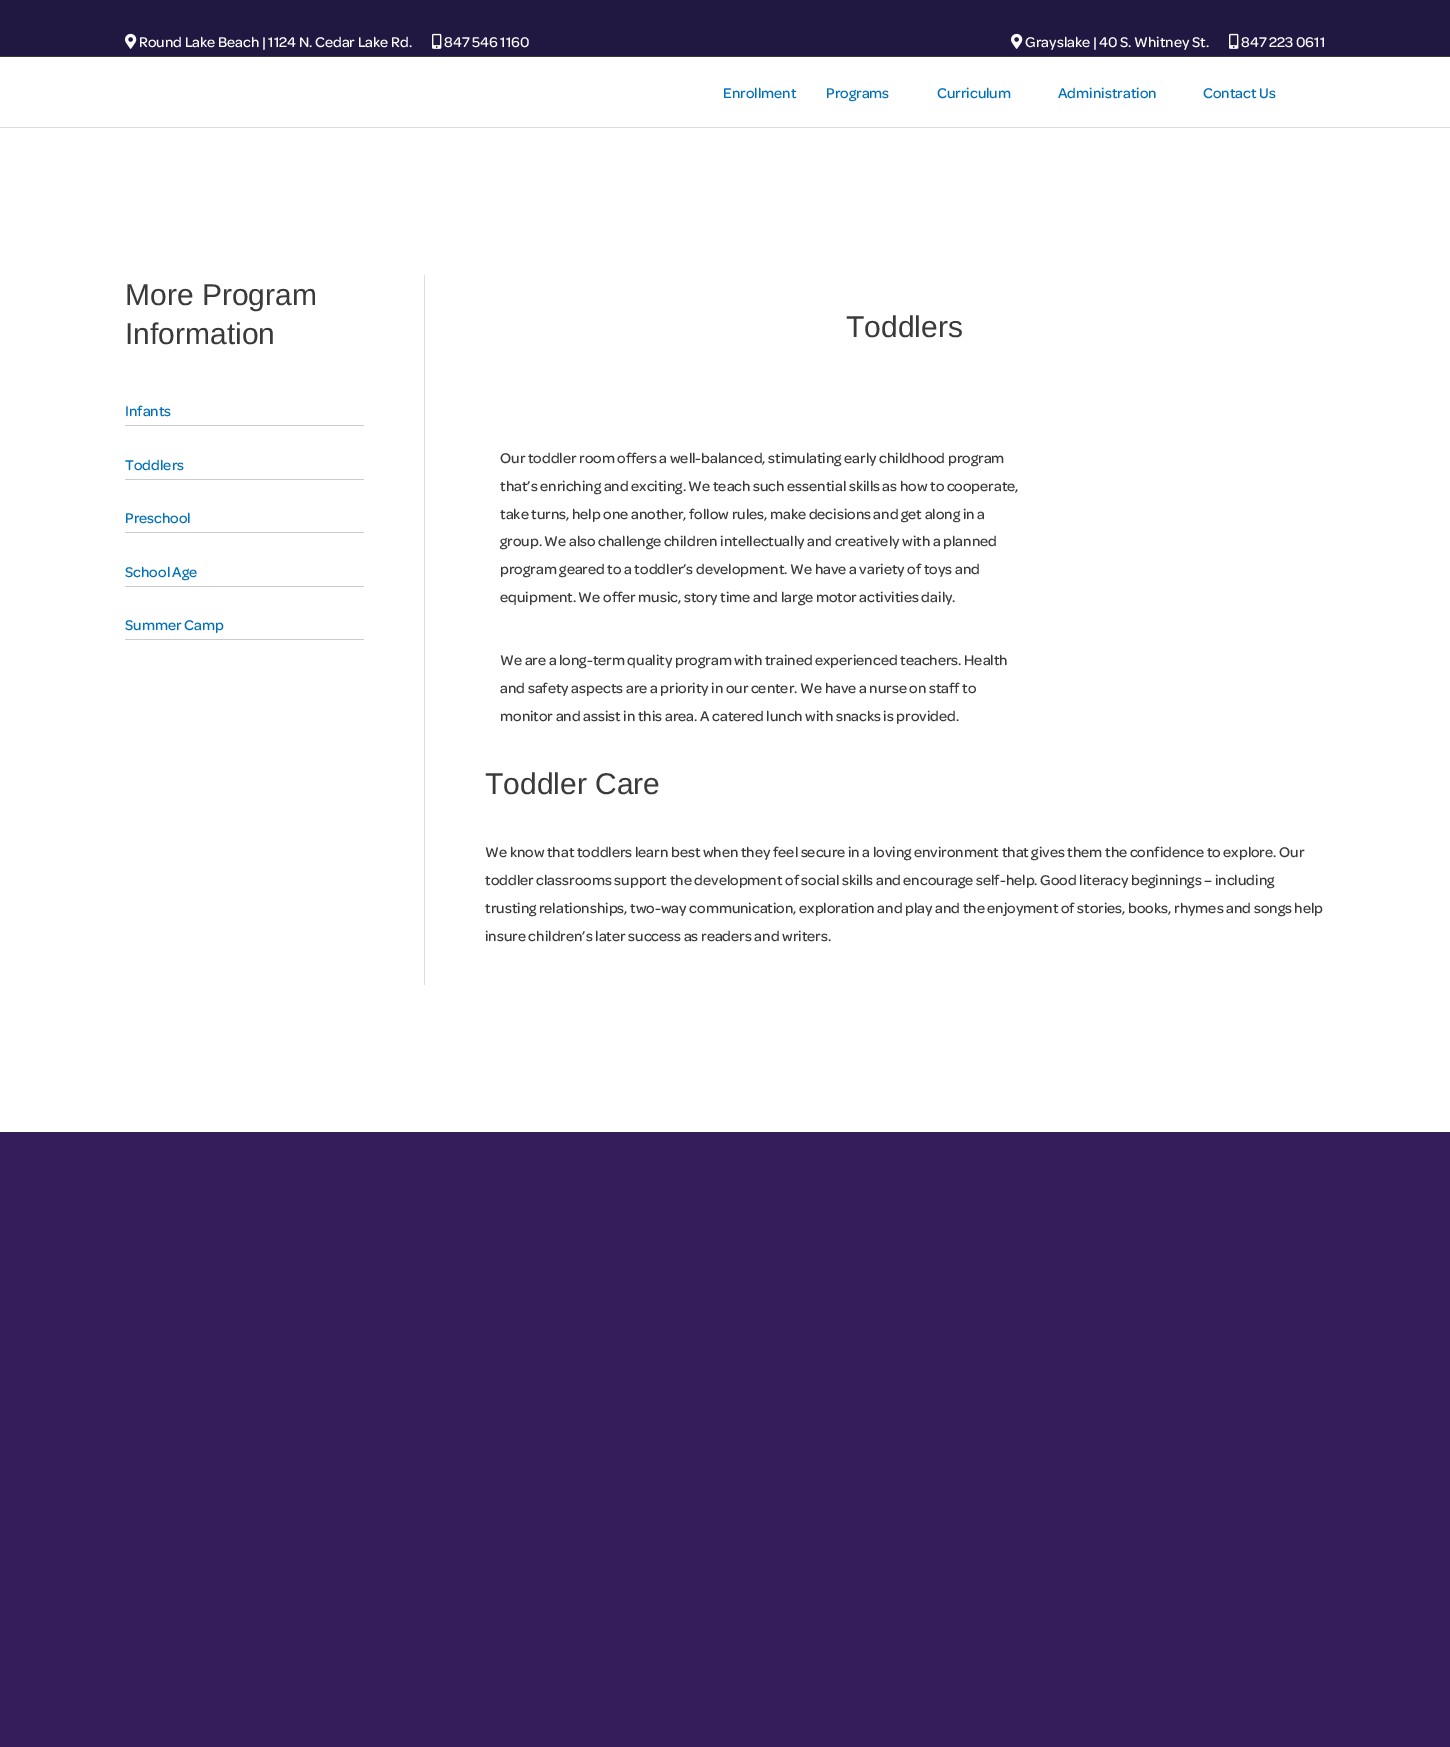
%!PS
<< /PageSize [1450 1747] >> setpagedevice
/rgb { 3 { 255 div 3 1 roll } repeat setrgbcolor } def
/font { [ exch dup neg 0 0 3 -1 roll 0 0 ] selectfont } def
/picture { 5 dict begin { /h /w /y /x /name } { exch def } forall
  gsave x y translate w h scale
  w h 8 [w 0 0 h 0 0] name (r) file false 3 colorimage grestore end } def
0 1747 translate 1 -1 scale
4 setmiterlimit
255 255 255 rgb
0 0 1450 1747 rectfill
32 24 65 rgb
0 0 1450 56 rectfill
58 58 58 rgb
0 56 1450 1 rectfill
(img/1.rgb) 125 33 12 16 picture
(img/2.rgb) 432 33 10 16 picture
(img/1.rgb) 1011 33 12 16 picture
(img/2.rgb) 1229 33 10 16 picture
[
  [0 127 1450 1 221 221 221]
  [125 425 239 1 204 204 204]
  [125 479 239 1 204 204 204]
  [125 532 239 1 204 204 204]
  [125 586 239 1 204 204 204]
  [125 639 239 1 204 204 204]
  [424 275 1 710 221 221 221]
  [0 1132 1450 615 53 28 90]
] { aload pop rgb rectfill } forall
/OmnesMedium-Medium 15 font
255 255 255 rgb
[
  [(Round Lake Beach | 1124 N. Cedar Lake Rd.) 139 47]
  [(847 546 1160) 444 47]
  [(Grayslake | 40 S. Whitney St.) 1025 47]
  [(847 223 0611) 1241 47]
] { aload pop moveto show } forall
1 112 185 rgb
[
  [(Enrollment) 723 98]
  [(Programs) 826 98]
  [(Curriculum) 937 98]
  [(Administration) 1058 98]
  [(Contact Us) 1203 98]
] { aload pop moveto show } forall
/LiberationSans-Regular 30 font
58 58 58 rgb
125 305 moveto (More Program) show
125 344 moveto (Information) show
/OmnesMedium-Medium 15 font
1 112 185 rgb
[
  [(Infants) 125 416]
  [(Toddlers) 125 470]
  [(Preschool) 125 523]
  [(School Age) 125 577]
  [(Summer Camp) 125 630]
] { aload pop moveto show } forall
/LiberationSans-Regular 30 font
58 58 58 rgb
846 337 moveto (Toddlers) show
/OmnesMedium-Medium 15 font
[
  [(Our toddler room offers a well-balanced, stimulating early childhood program) 500 463]
  [(that’s enriching and exciting. We teach such essential skills as how to cooperate,) 500 491]
  [(take turns, help one another, follow rules, make decisions and get along in a) 500 519]
  [(group. We also challenge children intellectually and creatively with a planned) 500 546]
  [(program geared to a toddler’s development. We have a variety of toys and) 500 574]
  [(equipment. We offer music, story time and large motor activities daily.) 500 602]
  [(We are a long-term quality program with trained experienced teachers. Health) 500 665]
  [(and safety aspects are a priority in our center. We have a nurse on staff to) 500 693]
  [(monitor and assist in this area. A catered lunch with snacks is provided.) 500 721]
] { aload pop moveto show } forall
/LiberationSans-Regular 30 font
485 794 moveto (Toddler Care) show
/OmnesMedium-Medium 15 font
[
  [(We know that toddlers learn best when they feel secure in a loving environment that gives them the confidence to explore. Our) 485 857]
  [(toddler classrooms support the development of social skills and encourage self-help. Good literacy beginnings – including) 485 885]
  [(trusting relationships, two-way communication, exploration and play and the enjoyment of stories, books, rhymes and songs help) 485 913]
  [(insure children’s later success as readers and writers.) 485 941]
] { aload pop moveto show } forall
showpage
